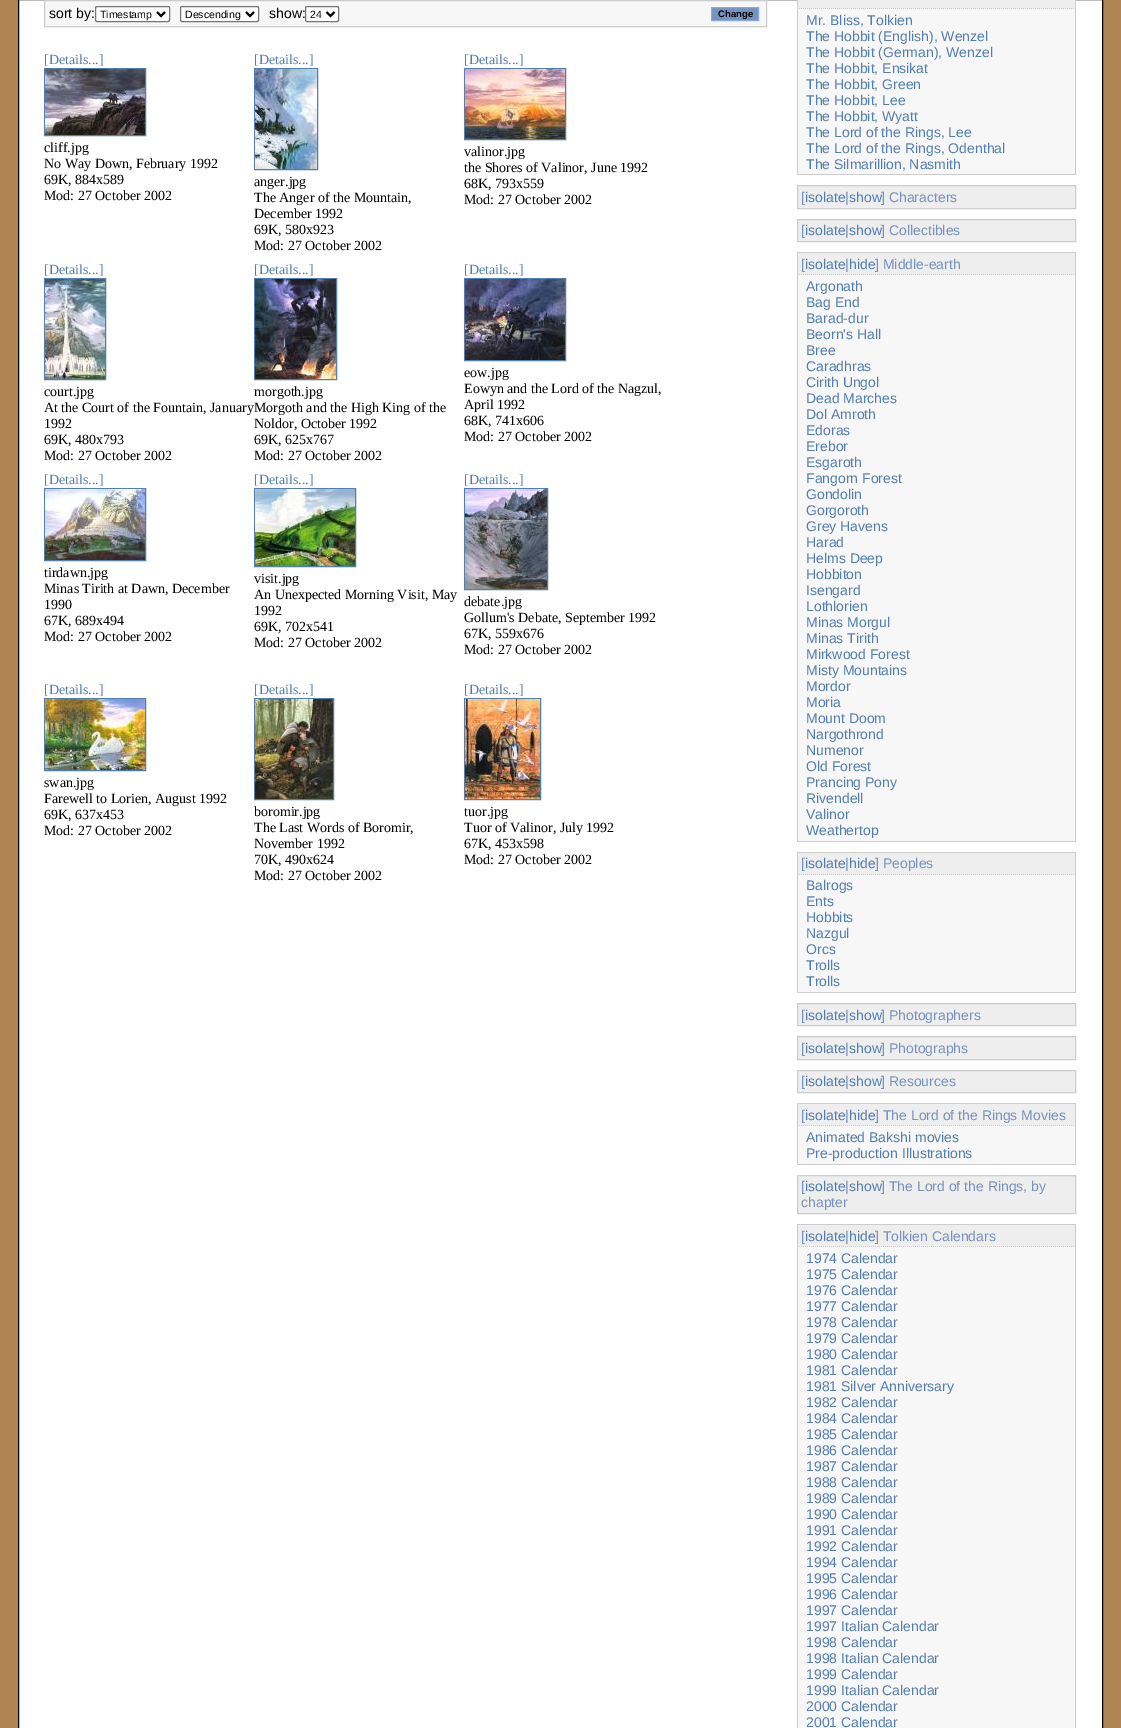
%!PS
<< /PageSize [1121 1728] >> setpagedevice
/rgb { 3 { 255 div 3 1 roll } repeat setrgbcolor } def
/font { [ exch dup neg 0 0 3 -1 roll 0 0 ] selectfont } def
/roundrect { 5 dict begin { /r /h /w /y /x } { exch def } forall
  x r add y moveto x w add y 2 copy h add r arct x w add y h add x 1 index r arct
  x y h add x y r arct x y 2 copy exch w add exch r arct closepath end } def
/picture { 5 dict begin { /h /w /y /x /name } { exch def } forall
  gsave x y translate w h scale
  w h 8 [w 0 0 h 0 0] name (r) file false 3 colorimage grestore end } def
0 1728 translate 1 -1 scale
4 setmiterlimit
176 133 83 rgb
0 0 1121 1728 rectfill
255 255 255 rgb
18.5 -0.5 moveto 1102.5 -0.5 lineto 1102.5 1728.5 lineto 18.5 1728.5 lineto closepath gsave fill grestore
0 0 0 rgb
stroke
247 247 247 rgb
44.5 0.5 moveto 766.5 0.5 lineto 766.5 26.5 lineto 44.5 26.5 lineto closepath gsave fill grestore
204 204 204 rgb
stroke
255 255 255 rgb
95.5 6.5 74 15 1.5 roundrect gsave fill grestore
118 118 118 rgb
stroke
0 0 0 rgb
2 setlinewidth
157 12 moveto 161 16 lineto 165 12 lineto stroke
255 255 255 rgb
180.5 6.5 78 15 1.5 roundrect gsave fill grestore
118 118 118 rgb
1 setlinewidth
stroke
0 0 0 rgb
2 setlinewidth
246 12 moveto 250 16 lineto 254 12 lineto stroke
255 255 255 rgb
305.5 6.5 33 15 1.5 roundrect gsave fill grestore
118 118 118 rgb
1 setlinewidth
stroke
0 0 0 rgb
2 setlinewidth
326.5 12 moveto 330.5 16 lineto 334.5 12 lineto stroke
119 146 188 rgb
711.5 7.5 moveto 758.5 7.5 lineto 758.5 20.5 lineto 711.5 20.5 lineto closepath gsave fill grestore
136 170 221 rgb
1 setlinewidth
stroke
83 126 176 rgb
44.5 68.5 101 67 rectstroke
(img/1.rgb) 45 69 100 66 picture
254.5 68.5 63 101 rectstroke
(img/2.rgb) 255 69 62 100 picture
464.5 68.5 101 71 rectstroke
(img/3.rgb) 465 69 100 70 picture
44.5 278.5 61 101 rectstroke
(img/4.rgb) 45 279 60 100 picture
254.5 278.5 82 101 rectstroke
(img/5.rgb) 255 279 81 100 picture
464.5 278.5 101 82 rectstroke
(img/6.rgb) 465 279 100 81 picture
44.5 488.5 101 72 rectstroke
(img/7.rgb) 45 489 100 71 picture
254.5 488.5 101 78 rectstroke
(img/8.rgb) 255 489 100 77 picture
464.5 488.5 83 101 rectstroke
(img/9.rgb) 465 489 82 100 picture
44.5 698.5 101 72 rectstroke
(img/10.rgb) 45 699 100 71 picture
254.5 698.5 79 101 rectstroke
(img/11.rgb) 255 699 78 100 picture
464.5 698.5 76 101 rectstroke
(img/12.rgb) 465 699 75 100 picture
238 238 238 rgb
798 0 277 9 rectfill
204 204 204 rgb
1075 0 1 175 rectfill
[1 1] 0 setdash
797 8.5 moveto 1076 8.5 lineto stroke
[
  [797 0 1 9 204 204 204]
  [798 9 277 165 247 247 247]
  [797 174 279 1 204 204 204]
  [797 9 1 166 204 204 204]
] { aload pop rgb rectfill } forall
238 238 238 rgb
797.5 185.5 moveto 1075.5 185.5 lineto 1075.5 208.5 lineto 797.5 208.5 lineto closepath gsave fill grestore
204 204 204 rgb
[] 0 setdash
stroke
238 238 238 rgb
797.5 219.5 moveto 1075.5 219.5 lineto 1075.5 241.5 lineto 797.5 241.5 lineto closepath gsave fill grestore
204 204 204 rgb
stroke
[
  [798 253 277 22 238 238 238]
  [797 252 279 1 204 204 204]
  [1075 252 1 590 204 204 204]
] { aload pop rgb rectfill } forall
[1 1] 0 setdash
797 274.5 moveto 1076 274.5 lineto stroke
[
  [797 252 1 23 204 204 204]
  [798 275 277 566 247 247 247]
  [797 841 279 1 204 204 204]
  [797 275 1 567 204 204 204]
  [798 853 277 22 238 238 238]
  [797 852 279 1 204 204 204]
  [1075 852 1 141 204 204 204]
] { aload pop rgb rectfill } forall
797 874.5 moveto 1076 874.5 lineto stroke
[
  [797 852 1 23 204 204 204]
  [798 875 277 117 247 247 247]
  [797 992 279 1 204 204 204]
  [797 875 1 118 204 204 204]
] { aload pop rgb rectfill } forall
238 238 238 rgb
797.5 1003.5 moveto 1075.5 1003.5 lineto 1075.5 1025.5 lineto 797.5 1025.5 lineto closepath gsave fill grestore
204 204 204 rgb
[] 0 setdash
stroke
238 238 238 rgb
797.5 1036.5 moveto 1075.5 1036.5 lineto 1075.5 1059.5 lineto 797.5 1059.5 lineto closepath gsave fill grestore
204 204 204 rgb
stroke
238 238 238 rgb
797.5 1070.5 moveto 1075.5 1070.5 lineto 1075.5 1092.5 lineto 797.5 1092.5 lineto closepath gsave fill grestore
204 204 204 rgb
stroke
[
  [798 1104 277 22 238 238 238]
  [797 1103 279 1 204 204 204]
  [1075 1103 1 62 204 204 204]
] { aload pop rgb rectfill } forall
[1 1] 0 setdash
797 1125.5 moveto 1076 1125.5 lineto stroke
[
  [797 1103 1 23 204 204 204]
  [798 1126 277 38 247 247 247]
  [797 1164 279 1 204 204 204]
  [797 1126 1 39 204 204 204]
] { aload pop rgb rectfill } forall
238 238 238 rgb
797.5 1175.5 moveto 1075.5 1175.5 lineto 1075.5 1213.5 lineto 797.5 1213.5 lineto closepath gsave fill grestore
204 204 204 rgb
[] 0 setdash
stroke
[
  [798 1225 277 22 238 238 238]
  [797 1224 279 1 204 204 204]
  [1075 1224 1 504 204 204 204]
] { aload pop rgb rectfill } forall
[1 1] 0 setdash
797 1246.5 moveto 1076 1246.5 lineto stroke
797 1224 1 504 rectfill
247 247 247 rgb
798 1247 277 481 rectfill
/LiberationSans-Regular 14 font
0 0 0 rgb
49 18 moveto (sort by:) show
/LiberationSans-Regular 10.5 font
100 18 moveto (Timestamp) show
185 18 moveto (Descending) show
/LiberationSans-Regular 14 font
269 18 moveto (show:) show
/LiberationSans-Regular 10.5 font
310 18 moveto (24) show
/LiberationSans-Bold 9.5 font
718 17 moveto (Change) show
/LiberationSerif-Regular 14 font
83 126 176 rgb
44 64 moveto ([Details...]) show
0 0 0 rgb
[
  [(cliff.jpg) 44 152]
  [(No Way Down, February 1992) 44 168]
  [(69K, 884x589) 44 184]
  [(Mod: 27 October 2002) 44 200]
] { aload pop moveto show } forall
83 126 176 rgb
254 64 moveto ([Details...]) show
0 0 0 rgb
[
  [(anger.jpg) 254 186]
  [(The Anger of the Mountain,) 254 202]
  [(December 1992) 254 218]
  [(69K, 580x923) 254 234]
  [(Mod: 27 October 2002) 254 250]
] { aload pop moveto show } forall
83 126 176 rgb
464 64 moveto ([Details...]) show
0 0 0 rgb
[
  [(valinor.jpg) 464 156]
  [(the Shores of Valinor, June 1992) 464 172]
  [(68K, 793x559) 464 188]
  [(Mod: 27 October 2002) 464 204]
] { aload pop moveto show } forall
83 126 176 rgb
44 274 moveto ([Details...]) show
0 0 0 rgb
[
  [(court.jpg) 44 396]
  [(At the Court of the Fountain, January) 44 412]
  [(1992) 44 428]
  [(69K, 480x793) 44 444]
  [(Mod: 27 October 2002) 44 460]
] { aload pop moveto show } forall
83 126 176 rgb
254 274 moveto ([Details...]) show
0 0 0 rgb
[
  [(morgoth.jpg) 254 396]
  [(Morgoth and the High King of the) 254 412]
  [(Noldor, October 1992) 254 428]
  [(69K, 625x767) 254 444]
  [(Mod: 27 October 2002) 254 460]
] { aload pop moveto show } forall
83 126 176 rgb
464 274 moveto ([Details...]) show
0 0 0 rgb
[
  [(eow.jpg) 464 377]
  [(Eowyn and the Lord of the Nagzul,) 464 393]
  [(April 1992) 464 409]
  [(68K, 741x606) 464 425]
  [(Mod: 27 October 2002) 464 441]
] { aload pop moveto show } forall
83 126 176 rgb
44 484 moveto ([Details...]) show
0 0 0 rgb
[
  [(tirdawn.jpg) 44 577]
  [(Minas Tirith at Dawn, December) 44 593]
  [(1990) 44 609]
  [(67K, 689x494) 44 625]
  [(Mod: 27 October 2002) 44 641]
] { aload pop moveto show } forall
83 126 176 rgb
254 484 moveto ([Details...]) show
0 0 0 rgb
[
  [(visit.jpg) 254 583]
  [(An Unexpected Morning Visit, May) 254 599]
  [(1992) 254 615]
  [(69K, 702x541) 254 631]
  [(Mod: 27 October 2002) 254 647]
] { aload pop moveto show } forall
83 126 176 rgb
464 484 moveto ([Details...]) show
0 0 0 rgb
[
  [(debate.jpg) 464 606]
  [(Gollum's Debate, September 1992) 464 622]
  [(67K, 559x676) 464 638]
  [(Mod: 27 October 2002) 464 654]
] { aload pop moveto show } forall
83 126 176 rgb
44 694 moveto ([Details...]) show
0 0 0 rgb
[
  [(swan.jpg) 44 787]
  [(Farewell to Lorien, August 1992) 44 803]
  [(69K, 637x453) 44 819]
  [(Mod: 27 October 2002) 44 835]
] { aload pop moveto show } forall
83 126 176 rgb
254 694 moveto ([Details...]) show
0 0 0 rgb
[
  [(boromir.jpg) 254 816]
  [(The Last Words of Boromir,) 254 832]
  [(November 1992) 254 848]
  [(70K, 490x624) 254 864]
  [(Mod: 27 October 2002) 254 880]
] { aload pop moveto show } forall
83 126 176 rgb
464 694 moveto ([Details...]) show
0 0 0 rgb
[
  [(tuor.jpg) 464 816]
  [(Tuor of Valinor, July 1992) 464 832]
  [(67K, 453x598) 464 848]
  [(Mod: 27 October 2002) 464 864]
] { aload pop moveto show } forall
/LiberationSans-Regular 14 font
83 126 176 rgb
[
  [(Mr. Bliss, Tolkien) 806 25]
  [(The Hobbit \(English\), Wenzel) 806 41]
  [(The Hobbit \(German\), Wenzel) 806 57]
  [(The Hobbit, Ensikat) 806 73]
  [(The Hobbit, Green) 806 89]
  [(The Hobbit, Lee) 806 105]
  [(The Hobbit, Wyatt) 806 121]
  [(The Lord of the Rings, Lee) 806 137]
  [(The Lord of the Rings, Odenthal) 806 153]
  [(The Silmarillion, Nasmith) 806 169]
] { aload pop moveto show } forall
119 146 188 rgb
801 202 moveto ([) show
83 126 176 rgb
805 202 moveto (isolate show) show
119 146 188 rgb
[
  [(|) 845 202]
  [(] Characters) 881 202]
  [([) 801 235]
] { aload pop moveto show } forall
83 126 176 rgb
805 235 moveto (isolate show) show
119 146 188 rgb
[
  [(|) 845 235]
  [(] Collectibles) 881 235]
  [([) 801 269]
] { aload pop moveto show } forall
83 126 176 rgb
805 269 moveto (isolate hide) show
119 146 188 rgb
845 269 moveto (|) show
875 269 moveto (] Middle-earth) show
83 126 176 rgb
[
  [(Argonath) 806 291]
  [(Bag End) 806 307]
  [(Barad-dur) 806 323]
  [(Beorn's Hall) 806 339]
  [(Bree) 806 355]
  [(Caradhras) 806 371]
  [(Cirith Ungol) 806 387]
  [(Dead Marches) 806 403]
  [(Dol Amroth) 806 419]
  [(Edoras) 806 435]
  [(Erebor) 806 451]
  [(Esgaroth) 806 467]
  [(Fangorn Forest) 806 483]
  [(Gondolin) 806 499]
  [(Gorgoroth) 806 515]
  [(Grey Havens) 806 531]
  [(Harad) 806 547]
  [(Helms Deep) 806 563]
  [(Hobbiton) 806 579]
  [(Isengard) 806 595]
  [(Lothlorien) 806 611]
  [(Minas Morgul) 806 627]
  [(Minas Tirith) 806 643]
  [(Mirkwood Forest) 806 659]
  [(Misty Mountains) 806 675]
  [(Mordor) 806 691]
  [(Moria) 806 707]
  [(Mount Doom) 806 723]
  [(Nargothrond) 806 739]
  [(Numenor) 806 755]
  [(Old Forest) 806 771]
  [(Prancing Pony) 806 787]
  [(Rivendell) 806 803]
  [(Valinor) 806 819]
  [(Weathertop) 806 835]
] { aload pop moveto show } forall
119 146 188 rgb
801 868 moveto ([) show
83 126 176 rgb
805 868 moveto (isolate hide) show
119 146 188 rgb
845 868 moveto (|) show
875 868 moveto (] Peoples) show
83 126 176 rgb
[
  [(Balrogs) 806 890]
  [(Ents) 806 906]
  [(Hobbits) 806 922]
  [(Nazgul) 806 938]
  [(Orcs) 806 954]
  [(Trolls) 806 970]
  [(Trolls) 806 986]
] { aload pop moveto show } forall
119 146 188 rgb
801 1020 moveto ([) show
83 126 176 rgb
805 1020 moveto (isolate show) show
119 146 188 rgb
[
  [(|) 845 1020]
  [(] Photographers) 881 1020]
  [([) 801 1053]
] { aload pop moveto show } forall
83 126 176 rgb
805 1053 moveto (isolate show) show
119 146 188 rgb
[
  [(|) 845 1053]
  [(] Photographs) 881 1053]
  [([) 801 1086]
] { aload pop moveto show } forall
83 126 176 rgb
805 1086 moveto (isolate show) show
119 146 188 rgb
[
  [(|) 845 1086]
  [(] Resources) 881 1086]
  [([) 801 1120]
] { aload pop moveto show } forall
83 126 176 rgb
805 1120 moveto (isolate hide) show
119 146 188 rgb
845 1120 moveto (|) show
875 1120 moveto (] The Lord of the Rings Movies) show
83 126 176 rgb
806 1142 moveto (Animated Bakshi movies) show
806 1158 moveto (Pre-production Illustrations) show
119 146 188 rgb
801 1191 moveto ([) show
83 126 176 rgb
805 1191 moveto (isolate show) show
119 146 188 rgb
[
  [(|) 845 1191]
  [(] The Lord of the Rings, by) 881 1191]
  [(chapter) 801 1207]
  [([) 801 1241]
] { aload pop moveto show } forall
83 126 176 rgb
805 1241 moveto (isolate hide) show
119 146 188 rgb
845 1241 moveto (|) show
875 1241 moveto (] Tolkien Calendars) show
83 126 176 rgb
[
  [(1974 Calendar) 806 1263]
  [(1975 Calendar) 806 1279]
  [(1976 Calendar) 806 1295]
  [(1977 Calendar) 806 1311]
  [(1978 Calendar) 806 1327]
  [(1979 Calendar) 806 1343]
  [(1980 Calendar) 806 1359]
  [(1981 Calendar) 806 1375]
  [(1981 Silver Anniversary) 806 1391]
  [(1982 Calendar) 806 1407]
  [(1984 Calendar) 806 1423]
  [(1985 Calendar) 806 1439]
  [(1986 Calendar) 806 1455]
  [(1987 Calendar) 806 1471]
  [(1988 Calendar) 806 1487]
  [(1989 Calendar) 806 1503]
  [(1990 Calendar) 806 1519]
  [(1991 Calendar) 806 1535]
  [(1992 Calendar) 806 1551]
  [(1994 Calendar) 806 1567]
  [(1995 Calendar) 806 1583]
  [(1996 Calendar) 806 1599]
  [(1997 Calendar) 806 1615]
  [(1997 Italian Calendar) 806 1631]
  [(1998 Calendar) 806 1647]
  [(1998 Italian Calendar) 806 1663]
  [(1999 Calendar) 806 1679]
  [(1999 Italian Calendar) 806 1695]
  [(2000 Calendar) 806 1711]
  [(2001 Calendar) 806 1727]
] { aload pop moveto show } forall
showpage
